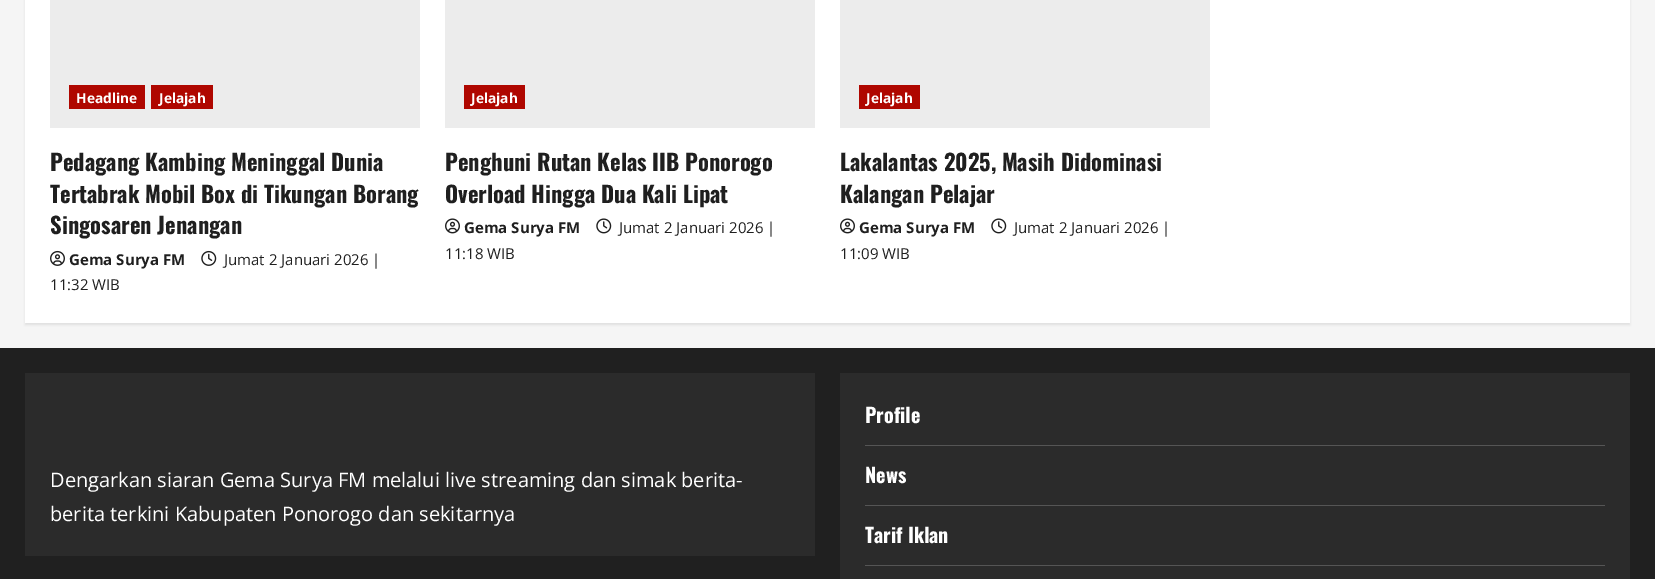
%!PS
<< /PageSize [1655 579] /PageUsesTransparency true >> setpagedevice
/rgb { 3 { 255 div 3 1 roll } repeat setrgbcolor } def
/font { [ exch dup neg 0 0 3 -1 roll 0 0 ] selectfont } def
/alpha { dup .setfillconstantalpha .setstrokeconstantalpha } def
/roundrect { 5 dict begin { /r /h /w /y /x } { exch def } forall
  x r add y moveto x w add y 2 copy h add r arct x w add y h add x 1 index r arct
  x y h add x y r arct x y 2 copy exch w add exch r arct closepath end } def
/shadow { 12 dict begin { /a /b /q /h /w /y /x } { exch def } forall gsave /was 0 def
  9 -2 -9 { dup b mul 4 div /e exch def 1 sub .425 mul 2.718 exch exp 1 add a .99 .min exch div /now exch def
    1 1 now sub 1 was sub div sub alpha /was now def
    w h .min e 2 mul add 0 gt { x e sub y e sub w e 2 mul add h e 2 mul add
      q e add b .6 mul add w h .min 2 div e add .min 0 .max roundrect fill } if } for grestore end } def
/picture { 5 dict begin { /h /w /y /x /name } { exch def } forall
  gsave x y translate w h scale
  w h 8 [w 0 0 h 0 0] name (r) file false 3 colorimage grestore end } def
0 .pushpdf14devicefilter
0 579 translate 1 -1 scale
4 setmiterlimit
245 245 245 rgb
0 0 1655 579 rectfill
0 0 0 rgb
25 -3 1605 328 0 1 0.08 shadow
[
  [25 0 1605 323 255 255 255]
  [50 0 370 128 236 236 236]
  [69 85 76 24 175 7 0]
  [151 85 62 24 175 7 0]
] { aload pop rgb rectfill } forall
(img/1.rgb) 201 250 16 16 picture
(img/2.rgb) 50 250 15 16 picture
236 236 236 rgb
445 0 370 128 rectfill
175 7 0 rgb
464 85 61 24 rectfill
(img/3.rgb) 596 218 16 16 picture
(img/4.rgb) 445 218 15 16 picture
236 236 236 rgb
840 0 370 128 rectfill
175 7 0 rgb
859 85 61 24 rectfill
(img/3.rgb) 991 218 16 16 picture
(img/4.rgb) 840 218 15 16 picture
[
  [0 348 1655 231 32 32 32]
  [25 373 790 183 43 43 43]
  [840 373 790 206 43 43 43]
  [865 445 740 1 85 85 85]
  [865 505 740 1 85 85 85]
  [865 565 740 1 85 85 85]
] { aload pop rgb rectfill } forall
/OpenSans-Bold 13.75 font
255 255 255 rgb
76 103 moveto (Headline) show
159 103 moveto (Jelajah) show
/Oswald-Bold 22.5 font
31 31 31 rgb
[
  [(Pedagang Kambing Meninggal Dunia) 50 171]
  [(Tertabrak Mobil Box di Tikungan Borang) 50 203]
  [(Singosaren Jenangan) 50 234]
] { aload pop moveto show } forall
/OpenSans-Regular 15 font
224 265 moveto (Jumat 2 Januari 2026 |) show
50 290 moveto (11:32 WIB) show
/OpenSans-Bold 15 font
69 265 moveto (Gema Surya FM) show
/OpenSans-Bold 13.75 font
255 255 255 rgb
471 103 moveto (Jelajah) show
/Oswald-Bold 22.5 font
31 31 31 rgb
445 171 moveto (Penghuni Rutan Kelas IIB Ponorogo) show
445 203 moveto (Overload Hingga Dua Kali Lipat) show
/OpenSans-Regular 15 font
619 233 moveto (Jumat 2 Januari 2026 |) show
445 259 moveto (11:18 WIB) show
/OpenSans-Bold 15 font
464 233 moveto (Gema Surya FM) show
/OpenSans-Bold 13.75 font
255 255 255 rgb
866 103 moveto (Jelajah) show
/Oswald-Bold 22.5 font
31 31 31 rgb
840 171 moveto (Lakalantas 2025, Masih Didominasi) show
840 203 moveto (Kalangan Pelajar) show
/OpenSans-Regular 15 font
1014 233 moveto (Jumat 2 Januari 2026 |) show
840 259 moveto (11:09 WIB) show
/OpenSans-Bold 15 font
859 233 moveto (Gema Surya FM) show
/OpenSans-Regular 20 font
255 255 255 rgb
50 487 moveto (Dengarkan siaran Gema Surya FM melalui live streaming dan simak berita-) show
50 521 moveto (berita terkini Kabupaten Ponorogo dan sekitarnya) show
/Oswald-Bold 20 font
[
  [(Profile) 865 423]
  [(News) 865 483]
  [(Tarif Iklan) 865 543]
] { aload pop moveto show } forall
.poppdf14devicefilter showpage
